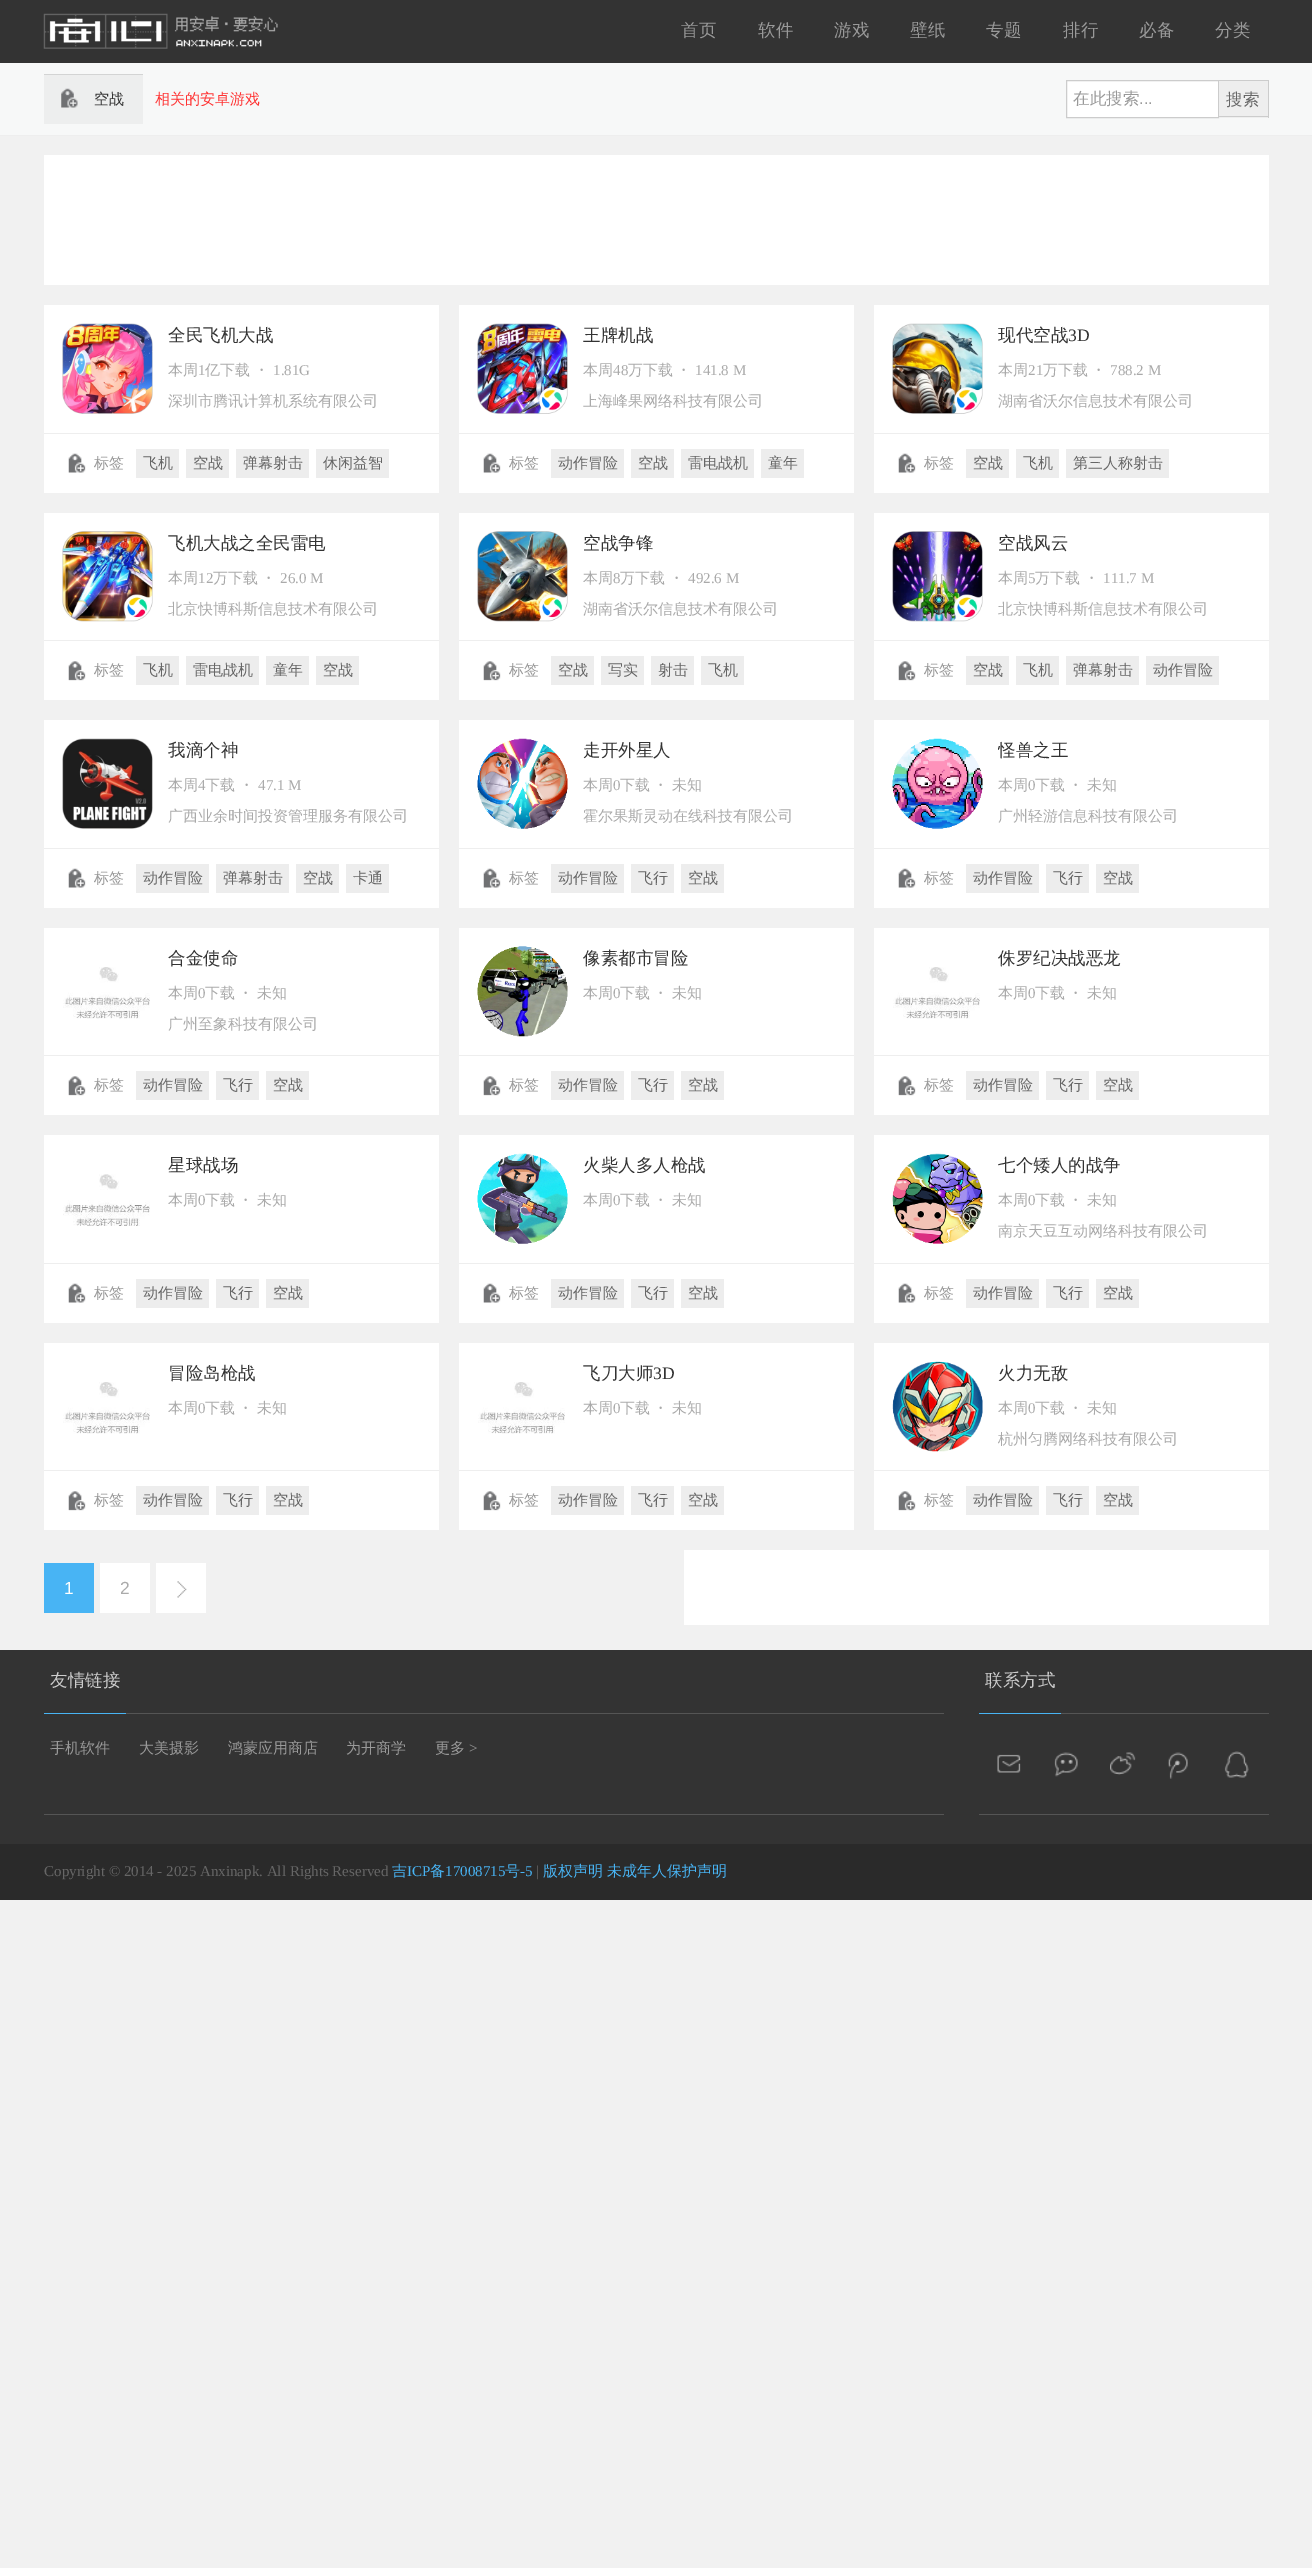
%!PS
<< /PageSize [1312 2568] >> setpagedevice
/rgb { 3 { 255 div 3 1 roll } repeat setrgbcolor } def
/font { [ exch dup neg 0 0 3 -1 roll 0 0 ] selectfont } def
/picture { 5 dict begin { /h /w /y /x /name } { exch def } forall
  gsave x y translate w h scale
  w h 8 [w 0 0 h 0 0] name (r) file false 3 colorimage grestore end } def
0 2568 translate 1 -1 scale
4 setmiterlimit
241 241 241 rgb
0 0 1312 2568 rectfill
51 51 51 rgb
0 0 1312 63 rectfill
(img/1.rgb) 43 13 235 36 picture
[
  [0 63 1312 72 247 248 248]
  [0 135 1312 1 238 238 238]
  [44 75 99 49 237 238 238]
] { aload pop rgb rectfill } forall
(img/2.rgb) 61 88 17 20 picture
211 212 212 rgb
44 74 99 1 rectfill
255 255 255 rgb
1066.5 80.5 moveto 1218.5 80.5 lineto 1218.5 117.5 lineto 1066.5 117.5 lineto closepath gsave fill grestore
204 204 204 rgb
stroke
[
  [1219 81 49 37 238 238 238]
  [1219 80 50 1 204 204 204]
  [1268 80 1 38 204 204 204]
  [1219 116 50 1 204 204 204]
  [44 155 1225 130 255 255 255]
  [44 305 395 188 255 255 255]
] { aload pop rgb rectfill } forall
(img/3.rgb) 62 323 91 91 picture
238 238 238 rgb
44 433 395 1 rectfill
(img/4.rgb) 68 453 18 20 picture
[
  [136 449 43 29 237 237 237]
  [186 449 43 29 237 237 237]
  [236 449 73 29 237 237 237]
  [316 449 73 29 237 237 237]
  [459 305 395 188 255 255 255]
] { aload pop rgb rectfill } forall
(img/5.rgb) 477 323 91 91 picture
238 238 238 rgb
459 433 395 1 rectfill
(img/4.rgb) 483 453 18 20 picture
[
  [551 449 73 29 237 237 237]
  [631 449 43 29 237 237 237]
  [681 449 73 29 237 237 237]
  [761 449 43 29 237 237 237]
  [874 305 395 188 255 255 255]
] { aload pop rgb rectfill } forall
(img/6.rgb) 892 323 91 91 picture
238 238 238 rgb
874 433 395 1 rectfill
(img/7.rgb) 898 453 18 20 picture
[
  [966 449 43 29 237 237 237]
  [1016 449 43 29 237 237 237]
  [1066 449 103 29 237 237 237]
  [44 513 395 187 255 255 255]
] { aload pop rgb rectfill } forall
(img/8.rgb) 62 531 91 91 picture
238 238 238 rgb
44 640 395 1 rectfill
(img/9.rgb) 68 661 18 20 picture
[
  [136 656 43 29 237 237 237]
  [186 656 73 29 237 237 237]
  [266 656 43 29 237 237 237]
  [316 656 43 29 237 237 237]
  [459 513 395 187 255 255 255]
] { aload pop rgb rectfill } forall
(img/10.rgb) 477 531 91 91 picture
238 238 238 rgb
459 640 395 1 rectfill
(img/9.rgb) 483 661 18 20 picture
[
  [551 656 43 29 237 237 237]
  [601 656 43 29 237 237 237]
  [651 656 43 29 237 237 237]
  [701 656 43 29 237 237 237]
  [874 513 395 187 255 255 255]
] { aload pop rgb rectfill } forall
(img/11.rgb) 892 531 91 91 picture
238 238 238 rgb
874 640 395 1 rectfill
(img/12.rgb) 898 661 18 20 picture
[
  [966 656 43 29 237 237 237]
  [1016 656 43 29 237 237 237]
  [1066 656 73 29 237 237 237]
  [1146 656 73 29 237 237 237]
  [44 720 395 188 255 255 255]
] { aload pop rgb rectfill } forall
(img/13.rgb) 62 738 91 91 picture
238 238 238 rgb
44 848 395 1 rectfill
(img/4.rgb) 68 868 18 20 picture
[
  [136 864 73 29 237 237 237]
  [216 864 73 29 237 237 237]
  [296 864 43 29 237 237 237]
  [346 864 43 29 237 237 237]
  [459 720 395 188 255 255 255]
] { aload pop rgb rectfill } forall
(img/14.rgb) 477 738 91 91 picture
238 238 238 rgb
459 848 395 1 rectfill
(img/4.rgb) 483 868 18 20 picture
[
  [551 864 73 29 237 237 237]
  [631 864 43 29 237 237 237]
  [681 864 43 29 237 237 237]
  [874 720 395 188 255 255 255]
] { aload pop rgb rectfill } forall
(img/15.rgb) 892 738 91 91 picture
238 238 238 rgb
874 848 395 1 rectfill
(img/7.rgb) 898 868 18 20 picture
[
  [966 864 73 29 237 237 237]
  [1046 864 43 29 237 237 237]
  [1096 864 43 29 237 237 237]
  [44 928 395 187 255 255 255]
] { aload pop rgb rectfill } forall
(img/16.rgb) 63 967 87 52 picture
238 238 238 rgb
44 1055 395 1 rectfill
(img/9.rgb) 68 1076 18 20 picture
[
  [136 1071 73 29 237 237 237]
  [216 1071 43 29 237 237 237]
  [266 1071 43 29 237 237 237]
  [459 928 395 187 255 255 255]
] { aload pop rgb rectfill } forall
(img/17.rgb) 477 946 91 91 picture
238 238 238 rgb
459 1055 395 1 rectfill
(img/9.rgb) 483 1076 18 20 picture
[
  [551 1071 73 29 237 237 237]
  [631 1071 43 29 237 237 237]
  [681 1071 43 29 237 237 237]
  [874 928 395 187 255 255 255]
] { aload pop rgb rectfill } forall
(img/16.rgb) 893 967 87 52 picture
238 238 238 rgb
874 1055 395 1 rectfill
(img/12.rgb) 898 1076 18 20 picture
[
  [966 1071 73 29 237 237 237]
  [1046 1071 43 29 237 237 237]
  [1096 1071 43 29 237 237 237]
  [44 1135 395 188 255 255 255]
] { aload pop rgb rectfill } forall
(img/18.rgb) 63 1174 87 52 picture
238 238 238 rgb
44 1263 395 1 rectfill
(img/4.rgb) 68 1283 18 20 picture
[
  [136 1279 73 29 237 237 237]
  [216 1279 43 29 237 237 237]
  [266 1279 43 29 237 237 237]
  [459 1135 395 188 255 255 255]
] { aload pop rgb rectfill } forall
(img/19.rgb) 477 1153 91 91 picture
238 238 238 rgb
459 1263 395 1 rectfill
(img/4.rgb) 483 1283 18 20 picture
[
  [551 1279 73 29 237 237 237]
  [631 1279 43 29 237 237 237]
  [681 1279 43 29 237 237 237]
  [874 1135 395 188 255 255 255]
] { aload pop rgb rectfill } forall
(img/20.rgb) 892 1153 91 91 picture
238 238 238 rgb
874 1263 395 1 rectfill
(img/7.rgb) 898 1283 18 20 picture
[
  [966 1279 73 29 237 237 237]
  [1046 1279 43 29 237 237 237]
  [1096 1279 43 29 237 237 237]
  [44 1343 395 187 255 255 255]
] { aload pop rgb rectfill } forall
(img/21.rgb) 63 1382 87 52 picture
238 238 238 rgb
44 1470 395 1 rectfill
(img/9.rgb) 68 1491 18 20 picture
[
  [136 1486 73 29 237 237 237]
  [216 1486 43 29 237 237 237]
  [266 1486 43 29 237 237 237]
  [459 1343 395 187 255 255 255]
] { aload pop rgb rectfill } forall
(img/22.rgb) 478 1382 87 52 picture
238 238 238 rgb
459 1470 395 1 rectfill
(img/9.rgb) 483 1491 18 20 picture
[
  [551 1486 73 29 237 237 237]
  [631 1486 43 29 237 237 237]
  [681 1486 43 29 237 237 237]
  [874 1343 395 187 255 255 255]
] { aload pop rgb rectfill } forall
(img/23.rgb) 892 1361 91 91 picture
238 238 238 rgb
874 1470 395 1 rectfill
(img/12.rgb) 898 1491 18 20 picture
[
  [966 1486 73 29 237 237 237]
  [1046 1486 43 29 237 237 237]
  [1096 1486 43 29 237 237 237]
  [44 1563 50 50 72 180 244]
  [100 1563 50 50 255 255 255]
  [156 1563 50 50 255 255 255]
] { aload pop rgb rectfill } forall
(img/24.rgb) 177 1581 10 17 picture
[
  [684 1550 585 75 255 255 255]
  [0 1650 1312 194 51 51 51]
  [44 1713 82 1 72 180 244]
  [126 1713 818 1 85 85 85]
  [44 1814 900 1 85 85 85]
  [979 1713 82 1 72 180 244]
  [1061 1713 208 1 85 85 85]
  [979 1814 290 1 85 85 85]
] { aload pop rgb rectfill } forall
(img/25.rgb) 997 1754 24 19 picture
(img/26.rgb) 1054 1752 24 25 picture
(img/27.rgb) 1110 1752 26 23 picture
(img/28.rgb) 1168 1752 20 27 picture
(img/29.rgb) 1224 1751 25 27 picture
42 42 42 rgb
0 1844 1312 56 rectfill
/WenQuanYiZenHei-Medium 17.5 font
153 153 153 rgb
[
  [(首页) 681 36]
  [(软件) 758 36]
  [(游戏) 834 36]
  [(壁纸) 910 36]
  [(专题) 986 36]
  [(排行) 1063 36]
  [(必备) 1139 36]
  [(分类) 1215 36]
] { aload pop moveto show } forall
/WenQuanYiZenHei-Medium 15 font
51 51 51 rgb
94 104 moveto (空战) show
255 51 51 rgb
155 104 moveto (相关的安卓游戏) show
/WenQuanYiZenHei-Medium 16.5 font
153 153 153 rgb
1073 104 moveto (在此搜索) show
/LiberationSans-Regular 16.5 font
1139 104 moveto (...) show
/WenQuanYiZenHei-Medium 16.5 font
102 102 102 rgb
1226 105 moveto (搜索) show
/WenQuanYiZenHei-Medium 17.5 font
51 51 51 rgb
168 341 moveto (全民飞机大战) show
/WenQuanYiZenHei-Medium 15 font
170 170 170 rgb
168 375 moveto (本周) show
/LiberationSerif-Regular 15 font
198 375 moveto (1) show
/WenQuanYiZenHei-Medium 15 font
205 375 moveto (亿下载 ・) show
/LiberationSerif-Regular 15 font
273 375 moveto (1.81G) show
/WenQuanYiZenHei-Medium 15 font
168 406 moveto (深圳市腾讯计算机系统有限公司) show
153 153 153 rgb
94 468 moveto (标签) show
102 102 102 rgb
[
  [(飞机) 143 468]
  [(空战) 193 468]
  [(弹幕射击) 243 468]
  [(休闲益智) 323 468]
] { aload pop moveto show } forall
/WenQuanYiZenHei-Medium 17.5 font
51 51 51 rgb
583 341 moveto (王牌机战) show
/WenQuanYiZenHei-Medium 15 font
170 170 170 rgb
583 375 moveto (本周) show
/LiberationSerif-Regular 15 font
613 375 moveto (48) show
/WenQuanYiZenHei-Medium 15 font
628 375 moveto (万下载) show
676 375 moveto (・) show
/LiberationSerif-Regular 15 font
695 375 moveto (141.8 M) show
/WenQuanYiZenHei-Medium 15 font
583 406 moveto (上海峰果网络科技有限公司) show
153 153 153 rgb
509 468 moveto (标签) show
102 102 102 rgb
[
  [(动作冒险) 558 468]
  [(空战) 638 468]
  [(雷电战机) 688 468]
  [(童年) 768 468]
] { aload pop moveto show } forall
gsave
998 324 240 32 rectclip
/WenQuanYiZenHei-Medium 17.5 font
51 51 51 rgb
998 341 moveto (现代空战) show
grestore
/LiberationSerif-Regular 17.5 font
51 51 51 rgb
1068 341 moveto (3D) show
/WenQuanYiZenHei-Medium 15 font
170 170 170 rgb
998 375 moveto (本周) show
/LiberationSerif-Regular 15 font
1028 375 moveto (21) show
/WenQuanYiZenHei-Medium 15 font
1043 375 moveto (万下载) show
1091 375 moveto (・) show
/LiberationSerif-Regular 15 font
1110 375 moveto (788.2 M) show
/WenQuanYiZenHei-Medium 15 font
998 406 moveto (湖南省沃尔信息技术有限公司) show
153 153 153 rgb
924 468 moveto (标签) show
102 102 102 rgb
[
  [(空战) 973 468]
  [(飞机) 1023 468]
  [(第三人称射击) 1073 468]
] { aload pop moveto show } forall
/WenQuanYiZenHei-Medium 17.5 font
51 51 51 rgb
168 549 moveto (飞机大战之全民雷电) show
/WenQuanYiZenHei-Medium 15 font
170 170 170 rgb
168 583 moveto (本周) show
/LiberationSerif-Regular 15 font
198 583 moveto (12) show
/WenQuanYiZenHei-Medium 15 font
213 583 moveto (万下载) show
261 583 moveto (・) show
/LiberationSerif-Regular 15 font
280 583 moveto (26.0 M) show
/WenQuanYiZenHei-Medium 15 font
168 614 moveto (北京快博科斯信息技术有限公司) show
153 153 153 rgb
94 675 moveto (标签) show
102 102 102 rgb
[
  [(飞机) 143 675]
  [(雷电战机) 193 675]
  [(童年) 273 675]
  [(空战) 323 675]
] { aload pop moveto show } forall
/WenQuanYiZenHei-Medium 17.5 font
51 51 51 rgb
583 549 moveto (空战争锋) show
/WenQuanYiZenHei-Medium 15 font
170 170 170 rgb
583 583 moveto (本周) show
/LiberationSerif-Regular 15 font
613 583 moveto (8) show
/WenQuanYiZenHei-Medium 15 font
620 583 moveto (万下载) show
669 583 moveto (・) show
/LiberationSerif-Regular 15 font
688 583 moveto (492.6 M) show
/WenQuanYiZenHei-Medium 15 font
583 614 moveto (湖南省沃尔信息技术有限公司) show
153 153 153 rgb
509 675 moveto (标签) show
102 102 102 rgb
[
  [(空战) 558 675]
  [(写实) 608 675]
  [(射击) 658 675]
  [(飞机) 708 675]
] { aload pop moveto show } forall
/WenQuanYiZenHei-Medium 17.5 font
51 51 51 rgb
998 549 moveto (空战风云) show
/WenQuanYiZenHei-Medium 15 font
170 170 170 rgb
998 583 moveto (本周) show
/LiberationSerif-Regular 15 font
1028 583 moveto (5) show
/WenQuanYiZenHei-Medium 15 font
1035 583 moveto (万下载) show
1084 583 moveto (・) show
/LiberationSerif-Regular 15 font
1103 583 moveto (111.7 M) show
/WenQuanYiZenHei-Medium 15 font
998 614 moveto (北京快博科斯信息技术有限公司) show
153 153 153 rgb
924 675 moveto (标签) show
102 102 102 rgb
[
  [(空战) 973 675]
  [(飞机) 1023 675]
  [(弹幕射击) 1073 675]
  [(动作冒险) 1153 675]
] { aload pop moveto show } forall
/WenQuanYiZenHei-Medium 17.5 font
51 51 51 rgb
168 756 moveto (我滴个神) show
/WenQuanYiZenHei-Medium 15 font
170 170 170 rgb
168 790 moveto (本周) show
/LiberationSerif-Regular 15 font
198 790 moveto (4) show
/WenQuanYiZenHei-Medium 15 font
205 790 moveto (下载) show
239 790 moveto (・) show
/LiberationSerif-Regular 15 font
258 790 moveto (47.1 M) show
/WenQuanYiZenHei-Medium 15 font
168 821 moveto (广西业余时间投资管理服务有限公司) show
153 153 153 rgb
94 883 moveto (标签) show
102 102 102 rgb
[
  [(动作冒险) 143 883]
  [(弹幕射击) 223 883]
  [(空战) 303 883]
  [(卡通) 353 883]
] { aload pop moveto show } forall
/WenQuanYiZenHei-Medium 17.5 font
51 51 51 rgb
583 756 moveto (走开外星人) show
/WenQuanYiZenHei-Medium 15 font
170 170 170 rgb
583 790 moveto (本周) show
/LiberationSerif-Regular 15 font
613 790 moveto (0) show
/WenQuanYiZenHei-Medium 15 font
620 790 moveto -1 0 32 (下载 ・ 未知) widthshow
583 821 moveto (霍尔果斯灵动在线科技有限公司) show
153 153 153 rgb
509 883 moveto (标签) show
102 102 102 rgb
[
  [(动作冒险) 558 883]
  [(飞行) 638 883]
  [(空战) 688 883]
] { aload pop moveto show } forall
gsave
998 739 240 32 rectclip
/WenQuanYiZenHei-Medium 17.5 font
51 51 51 rgb
998 756 moveto (怪兽之王) show
grestore
170 170 170 rgb
998 790 moveto (本周) show
/LiberationSerif-Regular 15 font
1028 790 moveto (0) show
/WenQuanYiZenHei-Medium 15 font
1035 790 moveto -1 0 32 (下载 ・ 未知) widthshow
998 821 moveto (广州轻游信息科技有限公司) show
153 153 153 rgb
924 883 moveto (标签) show
102 102 102 rgb
[
  [(动作冒险) 973 883]
  [(飞行) 1053 883]
  [(空战) 1103 883]
] { aload pop moveto show } forall
/WenQuanYiZenHei-Medium 17.5 font
51 51 51 rgb
168 964 moveto (合金使命) show
/WenQuanYiZenHei-Medium 15 font
170 170 170 rgb
168 998 moveto (本周) show
/LiberationSerif-Regular 15 font
198 998 moveto (0) show
/WenQuanYiZenHei-Medium 15 font
205 998 moveto -1 0 32 (下载 ・ 未知) widthshow
168 1029 moveto (广州至象科技有限公司) show
153 153 153 rgb
94 1090 moveto (标签) show
102 102 102 rgb
[
  [(动作冒险) 143 1090]
  [(飞行) 223 1090]
  [(空战) 273 1090]
] { aload pop moveto show } forall
/WenQuanYiZenHei-Medium 17.5 font
51 51 51 rgb
583 964 moveto (像素都市冒险) show
/WenQuanYiZenHei-Medium 15 font
170 170 170 rgb
583 998 moveto (本周) show
/LiberationSerif-Regular 15 font
613 998 moveto (0) show
/WenQuanYiZenHei-Medium 15 font
620 998 moveto -1 0 32 (下载 ・ 未知) widthshow
153 153 153 rgb
509 1090 moveto (标签) show
102 102 102 rgb
[
  [(动作冒险) 558 1090]
  [(飞行) 638 1090]
  [(空战) 688 1090]
] { aload pop moveto show } forall
/WenQuanYiZenHei-Medium 17.5 font
51 51 51 rgb
998 964 moveto (侏罗纪决战恶龙) show
/WenQuanYiZenHei-Medium 15 font
170 170 170 rgb
998 998 moveto (本周) show
/LiberationSerif-Regular 15 font
1028 998 moveto (0) show
/WenQuanYiZenHei-Medium 15 font
1035 998 moveto -1 0 32 (下载 ・ 未知) widthshow
153 153 153 rgb
924 1090 moveto (标签) show
102 102 102 rgb
[
  [(动作冒险) 973 1090]
  [(飞行) 1053 1090]
  [(空战) 1103 1090]
] { aload pop moveto show } forall
/WenQuanYiZenHei-Medium 17.5 font
51 51 51 rgb
168 1171 moveto (星球战场) show
/WenQuanYiZenHei-Medium 15 font
170 170 170 rgb
168 1205 moveto (本周) show
/LiberationSerif-Regular 15 font
198 1205 moveto (0) show
/WenQuanYiZenHei-Medium 15 font
205 1205 moveto -1 0 32 (下载 ・ 未知) widthshow
153 153 153 rgb
94 1298 moveto (标签) show
102 102 102 rgb
[
  [(动作冒险) 143 1298]
  [(飞行) 223 1298]
  [(空战) 273 1298]
] { aload pop moveto show } forall
/WenQuanYiZenHei-Medium 17.5 font
51 51 51 rgb
583 1171 moveto (火柴人多人枪战) show
/WenQuanYiZenHei-Medium 15 font
170 170 170 rgb
583 1205 moveto (本周) show
/LiberationSerif-Regular 15 font
613 1205 moveto (0) show
/WenQuanYiZenHei-Medium 15 font
620 1205 moveto -1 0 32 (下载 ・ 未知) widthshow
153 153 153 rgb
509 1298 moveto (标签) show
102 102 102 rgb
[
  [(动作冒险) 558 1298]
  [(飞行) 638 1298]
  [(空战) 688 1298]
] { aload pop moveto show } forall
/WenQuanYiZenHei-Medium 17.5 font
51 51 51 rgb
998 1171 moveto (七个矮人的战争) show
/WenQuanYiZenHei-Medium 15 font
170 170 170 rgb
998 1205 moveto (本周) show
/LiberationSerif-Regular 15 font
1028 1205 moveto (0) show
/WenQuanYiZenHei-Medium 15 font
1035 1205 moveto -1 0 32 (下载 ・ 未知) widthshow
998 1236 moveto (南京天豆互动网络科技有限公司) show
153 153 153 rgb
924 1298 moveto (标签) show
102 102 102 rgb
[
  [(动作冒险) 973 1298]
  [(飞行) 1053 1298]
  [(空战) 1103 1298]
] { aload pop moveto show } forall
/WenQuanYiZenHei-Medium 17.5 font
51 51 51 rgb
168 1379 moveto (冒险岛枪战) show
/WenQuanYiZenHei-Medium 15 font
170 170 170 rgb
168 1413 moveto (本周) show
/LiberationSerif-Regular 15 font
198 1413 moveto (0) show
/WenQuanYiZenHei-Medium 15 font
205 1413 moveto -1 0 32 (下载 ・ 未知) widthshow
153 153 153 rgb
94 1505 moveto (标签) show
102 102 102 rgb
[
  [(动作冒险) 143 1505]
  [(飞行) 223 1505]
  [(空战) 273 1505]
] { aload pop moveto show } forall
/WenQuanYiZenHei-Medium 17.5 font
51 51 51 rgb
583 1379 moveto (飞刀大师) show
/LiberationSerif-Regular 17.5 font
653 1379 moveto (3D) show
/WenQuanYiZenHei-Medium 15 font
170 170 170 rgb
583 1413 moveto (本周) show
/LiberationSerif-Regular 15 font
613 1413 moveto (0) show
/WenQuanYiZenHei-Medium 15 font
620 1413 moveto -1 0 32 (下载 ・ 未知) widthshow
153 153 153 rgb
509 1505 moveto (标签) show
102 102 102 rgb
[
  [(动作冒险) 558 1505]
  [(飞行) 638 1505]
  [(空战) 688 1505]
] { aload pop moveto show } forall
/WenQuanYiZenHei-Medium 17.5 font
51 51 51 rgb
998 1379 moveto (火力无敌) show
/WenQuanYiZenHei-Medium 15 font
170 170 170 rgb
998 1413 moveto (本周) show
/LiberationSerif-Regular 15 font
1028 1413 moveto (0) show
/WenQuanYiZenHei-Medium 15 font
1035 1413 moveto -1 0 32 (下载 ・ 未知) widthshow
998 1444 moveto (杭州匀腾网络科技有限公司) show
153 153 153 rgb
924 1505 moveto (标签) show
102 102 102 rgb
[
  [(动作冒险) 973 1505]
  [(飞行) 1053 1505]
  [(空战) 1103 1505]
] { aload pop moveto show } forall
/LiberationSans-Regular 17.5 font
255 255 255 rgb
64 1594 moveto (1) show
170 170 170 rgb
120 1594 moveto (2) show
/WenQuanYiZenHei-Medium 17.5 font
204 204 204 rgb
50 1686 moveto (友情链接) show
/WenQuanYiZenHei-Medium 15 font
153 153 153 rgb
[
  [(手机软件) 50 1753]
  [(大美摄影) 139 1753]
  [(鸿蒙应用商店) 228 1753]
  [(为开商学) 346 1753]
  [(更多) 435 1753]
] { aload pop moveto show } forall
/LiberationSerif-Regular 15 font
469 1753 moveto (>) show
/WenQuanYiZenHei-Medium 17.5 font
204 204 204 rgb
985 1686 moveto (联系方式) show
/LiberationSerif-Regular 15 font
102 102 102 rgb
44 1876 moveto (Copyright © 2014 - 2025 Anxinapk. All Rights Reserved) show
/WenQuanYiZenHei-Medium 15 font
72 180 244 rgb
392 1876 moveto (吉) show
/LiberationSerif-Regular 15 font
407 1876 moveto (ICP) show
/WenQuanYiZenHei-Medium 15 font
430 1876 moveto (备) show
/LiberationSerif-Regular 15 font
445 1876 moveto (17008715) show
/WenQuanYiZenHei-Medium 15 font
505 1876 moveto (号) show
/LiberationSerif-Regular 15 font
520 1876 moveto (-5) show
102 102 102 rgb
536 1876 moveto (|) show
/WenQuanYiZenHei-Medium 15 font
72 180 244 rgb
543 1876 moveto (版权声明) show
607 1876 moveto (未成年人保护声明) show
showpage
